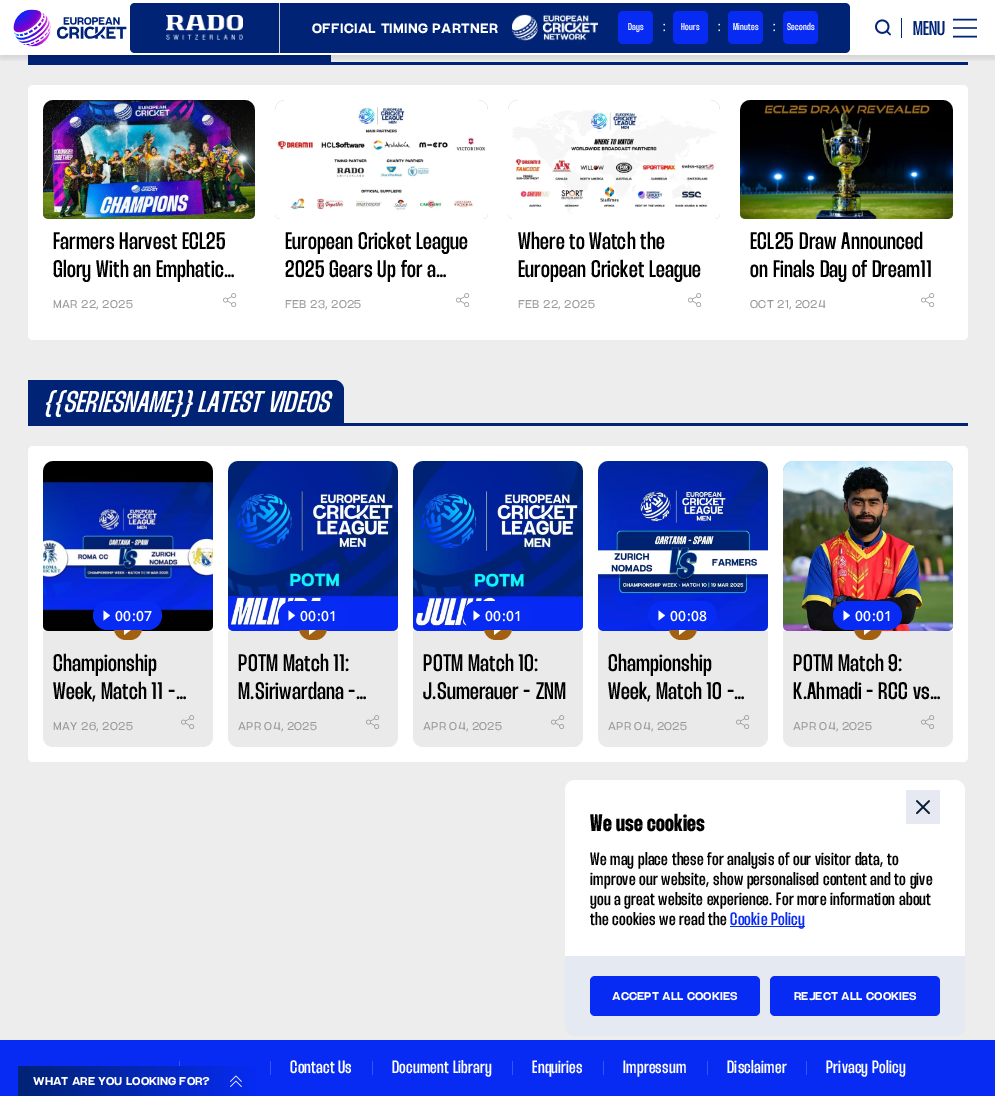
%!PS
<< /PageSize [995 1096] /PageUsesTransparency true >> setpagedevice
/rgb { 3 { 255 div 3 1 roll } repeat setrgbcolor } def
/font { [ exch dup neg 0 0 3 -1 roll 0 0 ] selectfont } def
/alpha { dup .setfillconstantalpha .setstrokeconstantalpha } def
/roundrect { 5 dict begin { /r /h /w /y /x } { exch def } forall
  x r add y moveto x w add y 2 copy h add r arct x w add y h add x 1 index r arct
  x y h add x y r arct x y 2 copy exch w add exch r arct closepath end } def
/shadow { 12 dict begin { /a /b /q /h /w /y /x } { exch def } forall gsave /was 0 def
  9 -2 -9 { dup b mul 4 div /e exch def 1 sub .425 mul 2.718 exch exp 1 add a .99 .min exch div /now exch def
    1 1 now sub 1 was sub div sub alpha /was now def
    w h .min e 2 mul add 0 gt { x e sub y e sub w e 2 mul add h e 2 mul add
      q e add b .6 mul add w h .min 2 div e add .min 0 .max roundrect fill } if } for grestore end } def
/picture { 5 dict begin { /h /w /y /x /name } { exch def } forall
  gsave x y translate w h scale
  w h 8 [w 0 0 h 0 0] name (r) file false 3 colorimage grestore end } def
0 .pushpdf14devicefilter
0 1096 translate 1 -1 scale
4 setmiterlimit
237 237 237 rgb
0 0 995 1096 rectfill
[
  [0 0 995 55 255 255 255]
  [28 62 940 3 0 35 117]
  [28 55 303 7 0 35 117]
] { aload pop rgb rectfill } forall
gsave
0 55 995 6 rectclip
0 0 0 rgb
0 4 995 55 0 2 0.1 shadow
grestore
(img/1.rgb) 13 9 114 38 picture
135 3 moveto 280 3 lineto 280 53 lineto 135 53 lineto 132 53 130 51 130 48 curveto 130 8 lineto 130 5 132 3 135 3 curveto closepath fill
207 207 207 rgb
279 3 1 50 rectfill
(img/2.rgb) 166 15 77 25 picture
0 35 117 rgb
280 3 moveto 845 3 lineto 848 3 850 5 850 8 curveto 850 48 lineto 850 51 848 53 845 53 curveto 280 53 lineto closepath fill
(img/3.rgb) 512 14 86 27 picture
7 43 242 rgb
618 11 35 33 5 roundrect fill
673 11 35 33 5 roundrect fill
728 11 35 33 5 roundrect fill
783 11 35 33 5 roundrect fill
(img/4.rgb) 875 19 16 17 picture
0 35 117 rgb
901 18 1 20 rectfill
1.6 setlinewidth
953 19.5 moveto 977 19.5 lineto stroke
51 79 145 rgb
953 27 24 2 rectfill
0 35 117 rgb
953 36.5 moveto 977 36.5 lineto stroke
255 255 255 rgb
28 85 940 255 5 roundrect fill
186 186 186 rgb
53 100 moveto 245 100 lineto 250.5 100 255 104.5 255 110 curveto 255 214 lineto 255 217 253 219 250 219 curveto 48 219 lineto 45 219 43 217 43 214 curveto 43 110 lineto 43 104.5 47.5 100 53 100 curveto closepath fill
(img/5.rgb) 43 100 212 119 picture
(img/6.rgb) 223 293 14 14 picture
285 100 moveto 478 100 lineto 483.5 100 488 104.5 488 110 curveto 488 214 lineto 488 217 486 219 483 219 curveto 280 219 lineto 277 219 275 217 275 214 curveto 275 110 lineto 275 104.5 279.5 100 285 100 curveto closepath fill
(img/7.rgb) 275 100 213 119 picture
(img/6.rgb) 456 293 14 14 picture
518 100 moveto 710 100 lineto 715.5 100 720 104.5 720 110 curveto 720 214 lineto 720 217 718 219 715 219 curveto 513 219 lineto 510 219 508 217 508 214 curveto 508 110 lineto 508 104.5 512.5 100 518 100 curveto closepath fill
(img/8.rgb) 508 100 212 119 picture
(img/6.rgb) 688 293 14 14 picture
750 100 moveto 943 100 lineto 948.5 100 953 104.5 953 110 curveto 953 214 lineto 953 217 951 219 948 219 curveto 745 219 lineto 742 219 740 217 740 214 curveto 740 110 lineto 740 104.5 744.5 100 750 100 curveto closepath fill
(img/9.rgb) 740 100 213 119 picture
(img/6.rgb) 921 293 14 14 picture
0 35 117 rgb
28 423 940 3 rectfill
28 380 moveto 334 380 lineto 339.5 380 344 384.5 344 390 curveto 344 423 lineto 28 423 lineto closepath fill
255 255 255 rgb
28 446 940 316 5 roundrect fill
186 186 186 rgb
53 461 moveto 203 461 lineto 208.5 461 213 465.5 213 471 curveto 213 626 lineto 213 629 211 631 208 631 curveto 48 631 lineto 45 631 43 629 43 626 curveto 43 471 lineto 43 465.5 47.5 461 53 461 curveto closepath fill
(img/10.rgb) 43 461 170 170 picture
234 234 234 rgb
43 631 moveto 213 631 lineto 213 737 lineto 213 742.5 208.5 747 203 747 curveto 53 747 lineto 47.5 747 43 742.5 43 737 curveto closepath fill
162 96 17 rgb
114 616 28 24 12 roundrect fill
255 255 255 rgb
124 623 moveto 124 635 lineto 132 629 lineto closepath fill
7 43 242 rgb
93 601 69 29 14.5 roundrect fill
255 255 255 rgb
103.5 610.5 moveto 103.5 620.5 lineto 110 615.5 lineto closepath fill
(img/11.rgb) 181 715 14 14 picture
186 186 186 rgb
238 461 moveto 388 461 lineto 393.5 461 398 465.5 398 471 curveto 398 626 lineto 398 629 396 631 393 631 curveto 233 631 lineto 230 631 228 629 228 626 curveto 228 471 lineto 228 465.5 232.5 461 238 461 curveto closepath fill
(img/12.rgb) 228 461 170 170 picture
234 234 234 rgb
228 631 moveto 398 631 lineto 398 737 lineto 398 742.5 393.5 747 388 747 curveto 238 747 lineto 232.5 747 228 742.5 228 737 curveto closepath fill
162 96 17 rgb
299 616 28 24 12 roundrect fill
255 255 255 rgb
309 623 moveto 309 635 lineto 317 629 lineto closepath fill
7 43 242 rgb
278 601 69 29 14.5 roundrect fill
255 255 255 rgb
288.5 610.5 moveto 288.5 620.5 lineto 295 615.5 lineto closepath fill
(img/11.rgb) 366 715 14 14 picture
186 186 186 rgb
423 461 moveto 573 461 lineto 578.5 461 583 465.5 583 471 curveto 583 626 lineto 583 629 581 631 578 631 curveto 418 631 lineto 415 631 413 629 413 626 curveto 413 471 lineto 413 465.5 417.5 461 423 461 curveto closepath fill
(img/13.rgb) 413 461 170 170 picture
234 234 234 rgb
413 631 moveto 583 631 lineto 583 737 lineto 583 742.5 578.5 747 573 747 curveto 423 747 lineto 417.5 747 413 742.5 413 737 curveto closepath fill
162 96 17 rgb
484 616 28 24 12 roundrect fill
255 255 255 rgb
494 623 moveto 494 635 lineto 502 629 lineto closepath fill
7 43 242 rgb
463 601 69 29 14.5 roundrect fill
255 255 255 rgb
473.5 610.5 moveto 473.5 620.5 lineto 480 615.5 lineto closepath fill
(img/11.rgb) 551 715 14 14 picture
186 186 186 rgb
608 461 moveto 758 461 lineto 763.5 461 768 465.5 768 471 curveto 768 626 lineto 768 629 766 631 763 631 curveto 603 631 lineto 600 631 598 629 598 626 curveto 598 471 lineto 598 465.5 602.5 461 608 461 curveto closepath fill
(img/14.rgb) 598 461 170 170 picture
234 234 234 rgb
598 631 moveto 768 631 lineto 768 737 lineto 768 742.5 763.5 747 758 747 curveto 608 747 lineto 602.5 747 598 742.5 598 737 curveto closepath fill
162 96 17 rgb
669 616 28 24 12 roundrect fill
255 255 255 rgb
679 623 moveto 679 635 lineto 687 629 lineto closepath fill
7 43 242 rgb
648 601 69 29 14.5 roundrect fill
255 255 255 rgb
658.5 610.5 moveto 658.5 620.5 lineto 665 615.5 lineto closepath fill
(img/11.rgb) 736 715 14 14 picture
186 186 186 rgb
793 461 moveto 943 461 lineto 948.5 461 953 465.5 953 471 curveto 953 626 lineto 953 629 951 631 948 631 curveto 788 631 lineto 785 631 783 629 783 626 curveto 783 471 lineto 783 465.5 787.5 461 793 461 curveto closepath fill
(img/15.rgb) 783 461 170 170 picture
234 234 234 rgb
783 631 moveto 953 631 lineto 953 737 lineto 953 742.5 948.5 747 943 747 curveto 793 747 lineto 787.5 747 783 742.5 783 737 curveto closepath fill
162 96 17 rgb
854 616 28 24 12 roundrect fill
255 255 255 rgb
864 623 moveto 864 635 lineto 872 629 lineto closepath fill
7 43 242 rgb
833 601 69 29 14.5 roundrect fill
255 255 255 rgb
843.5 610.5 moveto 843.5 620.5 lineto 850 615.5 lineto closepath fill
(img/11.rgb) 921 715 14 14 picture
7 43 242 rgb
0 1040 995 56 rectfill
gsave 20 1066 moveto 255 1066 lineto 256 1066 257 1067 257 1068 curveto 257 1096 lineto 18 1096 lineto 18 1068 lineto 18 1067 19 1066 20 1066 curveto closepath clip newpath
<< /ShadingType 2 /ColorSpace /DeviceRGB /Coords [257 1081 18 1081] /Extend [true true] /Function << /FunctionType 2 /Domain [0 1] /C0 [0.027 0.169 0.949] /C1 [0 0.137 0.459] /N 1 >> >> shfill grestore
(img/16.rgb) 230 1075 12 12 picture
255 255 255 rgb
565 780 400 256 10 roundrect fill
230 233 241 rgb
906 790 34 34 rectfill
(img/17.rgb) 916 800 14 15 picture
7 43 242 rgb
730 926 75 1 rectfill
0.1 alpha
0 35 117 rgb
565 956 moveto 965 956 lineto 965 1026 lineto 965 1031.5 960.5 1036 955 1036 curveto 575 1036 lineto 569.5 1036 565 1031.5 565 1026 curveto closepath fill
1 alpha
7 43 242 rgb
590 976 170 40 5 roundrect fill
770 976 170 40 5 roundrect fill
[
  [179 1061 1 5 57 85 245]
  [270 1061 1 14 57 85 245]
  [372 1061 1 14 57 85 245]
  [512 1061 1 14 57 85 245]
  [603 1061 1 14 57 85 245]
  [707 1061 1 14 57 85 245]
  [806 1061 1 14 57 85 245]
] { aload pop rgb rectfill } forall
/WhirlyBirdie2-Thin 12 font
255 255 255 rgb
312 33 moveto 0.28 0 (OFFICIAL TIMING PARTNER) ashow
/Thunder-Medium 10 font
628 30 moveto 0.28 0 (Days) ashow
/Thunder-Medium 14 font
663 31 moveto 0.28 0 (:) ashow
/Thunder-Medium 10 font
681 30 moveto 0.28 0 (Hours) ashow
/Thunder-Medium 14 font
718 31 moveto 0.28 0 (:) ashow
/Thunder-Medium 10 font
733 30 moveto 0.28 0 (Minutes) ashow
/Thunder-Medium 14 font
773 31 moveto 0.28 0 (:) ashow
/Thunder-Medium 10 font
787 30 moveto 0.28 0 (Seconds) ashow
/Thunder-Medium 20 font
0 35 117 rgb
913 35 moveto (MENU) show
/Thunder-Medium 24 font
0 0 0 rgb
53 249 moveto 0.28 0 (Farmers Harvest ECL25) ashow
53 277 moveto 0.28 0 (Glory With an Emphatic…) ashow
/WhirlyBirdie-Thin 10 font
153 153 153 rgb
53 308 moveto 0.28 0 (Mar 22, 2025) ashow
/Thunder-Medium 24 font
0 0 0 rgb
285 249 moveto 0.28 0 (European Cricket League) ashow
285 277 moveto 0.28 0 (2025 Gears Up for a…) ashow
/WhirlyBirdie-Thin 10 font
153 153 153 rgb
285 308 moveto 0.28 0 (Feb 23, 2025) ashow
gsave
518 229 192 56 rectclip
/Thunder-Medium 24 font
0 0 0 rgb
518 249 moveto 0.28 0 (Where to Watch the) ashow
grestore
/Thunder-Medium 24 font
0 0 0 rgb
518 277 moveto 0.28 0 (European Cricket League) ashow
/WhirlyBirdie-Thin 10 font
153 153 153 rgb
518 308 moveto 0.28 0 (Feb 22, 2025) ashow
/Thunder-Medium 24 font
0 0 0 rgb
750 249 moveto 0.28 0 (ECL25 Draw Announced) ashow
750 277 moveto 0.28 0 (on Finals Day of Dream11) ashow
/WhirlyBirdie-Thin 10 font
153 153 153 rgb
750 308 moveto 0.28 0 (Oct 21, 2024) ashow
/Thunder-MediumItalic 30 font
255 255 255 rgb
43 412 moveto 0.28 0 ({{SERIESNAME}} LATEST VIDEOS) ashow
/OpenSans-SemiBold 14 font
115 621 moveto 0.28 0 (00:07) ashow
/Thunder-Medium 24 font
0 0 0 rgb
53 671 moveto 0.28 0 (Championship) ashow
gsave
53 651 150 56 rectclip
53 699 moveto 0.28 0 (Week, Match 11 -…) ashow
grestore
/WhirlyBirdie-Thin 10 font
153 153 153 rgb
53 730 moveto 0.28 0 (May 26, 2025) ashow
/OpenSans-SemiBold 14 font
255 255 255 rgb
300 621 moveto 0.28 0 (00:01) ashow
/Thunder-Medium 24 font
0 0 0 rgb
238 671 moveto 0.28 0 (POTM Match 11:) ashow
238 699 moveto 0.28 0 (M.Siriwardana -…) ashow
/WhirlyBirdie-Thin 10 font
153 153 153 rgb
238 730 moveto 0.28 0 (Apr 04, 2025) ashow
/OpenSans-SemiBold 14 font
255 255 255 rgb
485 621 moveto 0.28 0 (00:01) ashow
/Thunder-Medium 24 font
0 0 0 rgb
423 671 moveto 0.28 0 (POTM Match 10:) ashow
gsave
423 651 150 56 rectclip
423 699 moveto 0.28 0 (J.Sumerauer - ZNM) ashow
grestore
/WhirlyBirdie-Thin 10 font
153 153 153 rgb
423 730 moveto 0.28 0 (Apr 04, 2025) ashow
/OpenSans-SemiBold 14 font
255 255 255 rgb
670 621 moveto 0.28 0 (00:08) ashow
/Thunder-Medium 24 font
0 0 0 rgb
608 671 moveto 0.28 0 (Championship) ashow
gsave
608 651 150 56 rectclip
608 699 moveto 0.28 0 (Week, Match 10 -…) ashow
grestore
/WhirlyBirdie-Thin 10 font
153 153 153 rgb
608 730 moveto 0.28 0 (Apr 04, 2025) ashow
/OpenSans-SemiBold 14 font
255 255 255 rgb
855 621 moveto 0.28 0 (00:01) ashow
/Thunder-Medium 24 font
0 0 0 rgb
793 671 moveto 0.28 0 (POTM Match 9:) ashow
793 699 moveto 0.28 0 (K.Ahmadi - RCC vs…) ashow
/WhirlyBirdie-Thin 10 font
153 153 153 rgb
793 730 moveto 0.28 0 (Apr 04, 2025) ashow
/WhirlyBirdie2-Thin 10 font
255 255 255 rgb
33 1085 moveto (WHAT ARE YOU LOOKING FOR?) show
/Thunder-Bold 24 font
0 0 0 rgb
590 831 moveto 0.28 0 (We use cookies) ashow
/Thunder-Medium 18 font
590 865 moveto 0.28 0 (We may place these for analysis of our visitor data, to) ashow
590 885 moveto 0.28 0 (improve our website, show personalised content and to give) ashow
590 905 moveto 0.28 0 (you a great website experience. For more information about) ashow
590 925 moveto 0.28 0 (the cookies we read the) ashow
7 43 242 rgb
730 925 moveto 0.28 0 (Cookie Policy) ashow
/WhirlyBirdie2-Thin 10 font
255 255 255 rgb
612 1000 moveto (Accept all cookies) show
794 1000 moveto (Reject all cookies) show
/Thunder-Medium 18 font
290 1073 moveto 0.28 0 (Contact Us) ashow
392 1073 moveto 0.28 0 (Document Library) ashow
532 1073 moveto 0.28 0 (Enquiries) ashow
623 1073 moveto 0.28 0 (Impressum) ashow
727 1073 moveto 0.28 0 (Disclaimer) ashow
826 1073 moveto 0.28 0 (Privacy Policy) ashow
.poppdf14devicefilter showpage
